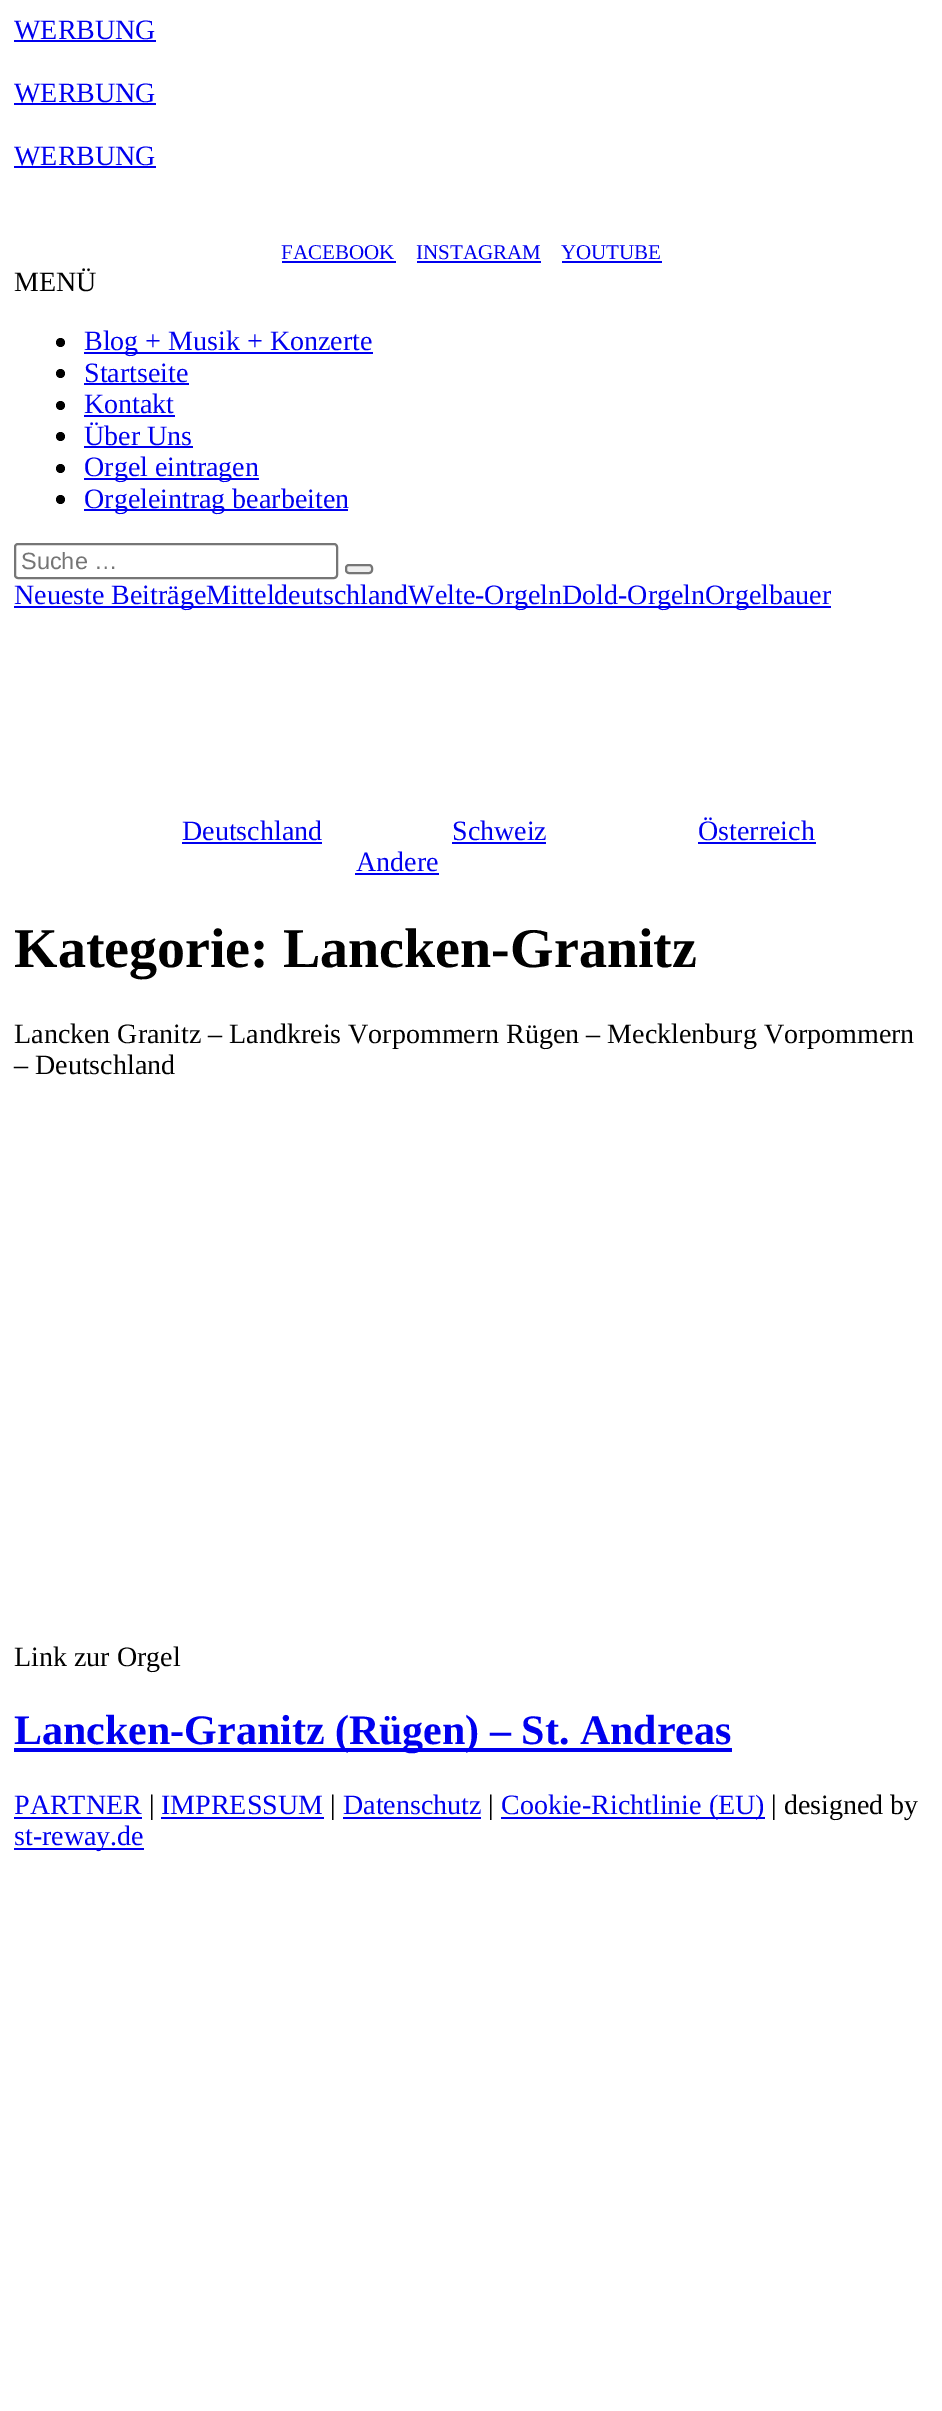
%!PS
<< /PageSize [942 2411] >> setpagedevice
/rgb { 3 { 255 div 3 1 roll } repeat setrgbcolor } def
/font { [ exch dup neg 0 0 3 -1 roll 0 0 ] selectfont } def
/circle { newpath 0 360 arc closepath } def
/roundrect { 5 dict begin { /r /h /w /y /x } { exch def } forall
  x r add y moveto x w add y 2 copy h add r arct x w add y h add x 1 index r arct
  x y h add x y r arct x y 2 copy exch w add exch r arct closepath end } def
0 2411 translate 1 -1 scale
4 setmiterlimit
255 255 255 rgb
0 0 942 2411 rectfill
[
  [14 40 142 2 0 0 238]
  [14 103 142 2 0 0 238]
  [14 166 142 2 0 0 238]
  [282 261 114 2 0 0 238]
  [417 261 124 2 0 0 238]
  [562 261 100 2 0 0 238]
] { aload pop rgb rectfill } forall
0 0 0 rgb
60.5 342.5 4.5 circle fill
0 0 238 rgb
84 352 289 2 rectfill
0 0 0 rgb
60.5 373.5 4.5 circle fill
0 0 238 rgb
84 383 105 2 rectfill
0 0 0 rgb
60.5 405.5 4.5 circle fill
0 0 238 rgb
84 415 91 2 rectfill
0 0 0 rgb
60.5 436.5 4.5 circle fill
0 0 238 rgb
84 446 109 2 rectfill
0 0 0 rgb
60.5 468.5 4.5 circle fill
0 0 238 rgb
84 478 175 2 rectfill
0 0 0 rgb
60.5 499.5 4.5 circle fill
0 0 238 rgb
84 509 264 2 rectfill
118 118 118 rgb
2 setlinewidth
15 544 322 34 3 roundrect stroke
239 239 239 rgb
346 565 26 8 3 roundrect gsave fill grestore
118 118 118 rgb
stroke
[
  [14 606 817 2 0 0 238]
  [182 842 140 2 0 0 238]
  [452 842 94 2 0 0 238]
  [698 842 118 2 0 0 238]
  [355 873 84 2 0 0 238]
  [14 1748 718 4 0 0 238]
  [14 1817 128 2 0 0 238]
  [161 1817 163 2 0 0 238]
  [343 1817 138 2 0 0 238]
  [501 1817 264 2 0 0 238]
  [14 1848 130 2 0 0 238]
] { aload pop rgb rectfill } forall
/LiberationSerif-Regular 28 font
[
  [(WERBUNG) 14 39]
  [(WERBUNG) 14 102]
  [(WERBUNG) 14 165]
] { aload pop moveto show } forall
/LiberationSerif-Regular 21 font
[
  [(FACEBOOK) 281 259]
  [(INSTAGRAM) 416 259]
  [(YOUTUBE) 561 259]
] { aload pop moveto show } forall
/LiberationSerif-Regular 28 font
0 0 0 rgb
14 291 moveto (MENÜ) show
0 0 238 rgb
[
  [(Blog + Musik + Konzerte) 84 350]
  [(Startseite) 84 382]
  [(Kontakt) 84 413]
  [(Über Uns) 84 445]
  [(Orgel eintragen) 84 476]
  [(Orgeleintrag bearbeiten) 84 508]
] { aload pop moveto show } forall
/LiberationSans-Regular 23.5 font
117 117 117 rgb
21 569 moveto (Suche …) show
/LiberationSerif-Regular 28 font
0 0 238 rgb
[
  [(Neueste BeiträgeMitteldeutschlandWelte-OrgelnDold-OrgelnOrgelbauer) 14 604]
  [(Deutschland) 182 840]
  [(Schweiz) 452 840]
  [(Österreich) 698 840]
  [(Andere) 356 871]
] { aload pop moveto show } forall
/LiberationSerif-Bold 56 font
0 0 0 rgb
14 967 moveto (Kategorie: Lancken-Granitz) show
/LiberationSerif-Regular 28 font
[
  [(Lancken Granitz – Landkreis Vorpommern Rügen – Mecklenburg Vorpommern) 14 1043]
  [(– Deutschland) 14 1074]
  [(Link zur Orgel) 14 1666]
] { aload pop moveto show } forall
/LiberationSerif-Bold 42 font
0 0 238 rgb
14 1744 moveto (Lancken-Granitz \(Rügen\) – St. Andreas) show
/LiberationSerif-Regular 28 font
14 1814 moveto (PARTNER) show
0 0 0 rgb
149 1814 moveto (|) show
0 0 238 rgb
161 1814 moveto (IMPRESSUM) show
0 0 0 rgb
330 1814 moveto (|) show
0 0 238 rgb
343 1814 moveto (Datenschutz) show
0 0 0 rgb
488 1814 moveto (|) show
0 0 238 rgb
501 1814 moveto (Cookie-Richtlinie \(EU\)) show
0 0 0 rgb
771 1814 moveto (| designed by) show
0 0 238 rgb
14 1845 moveto (st-reway.de) show
showpage
